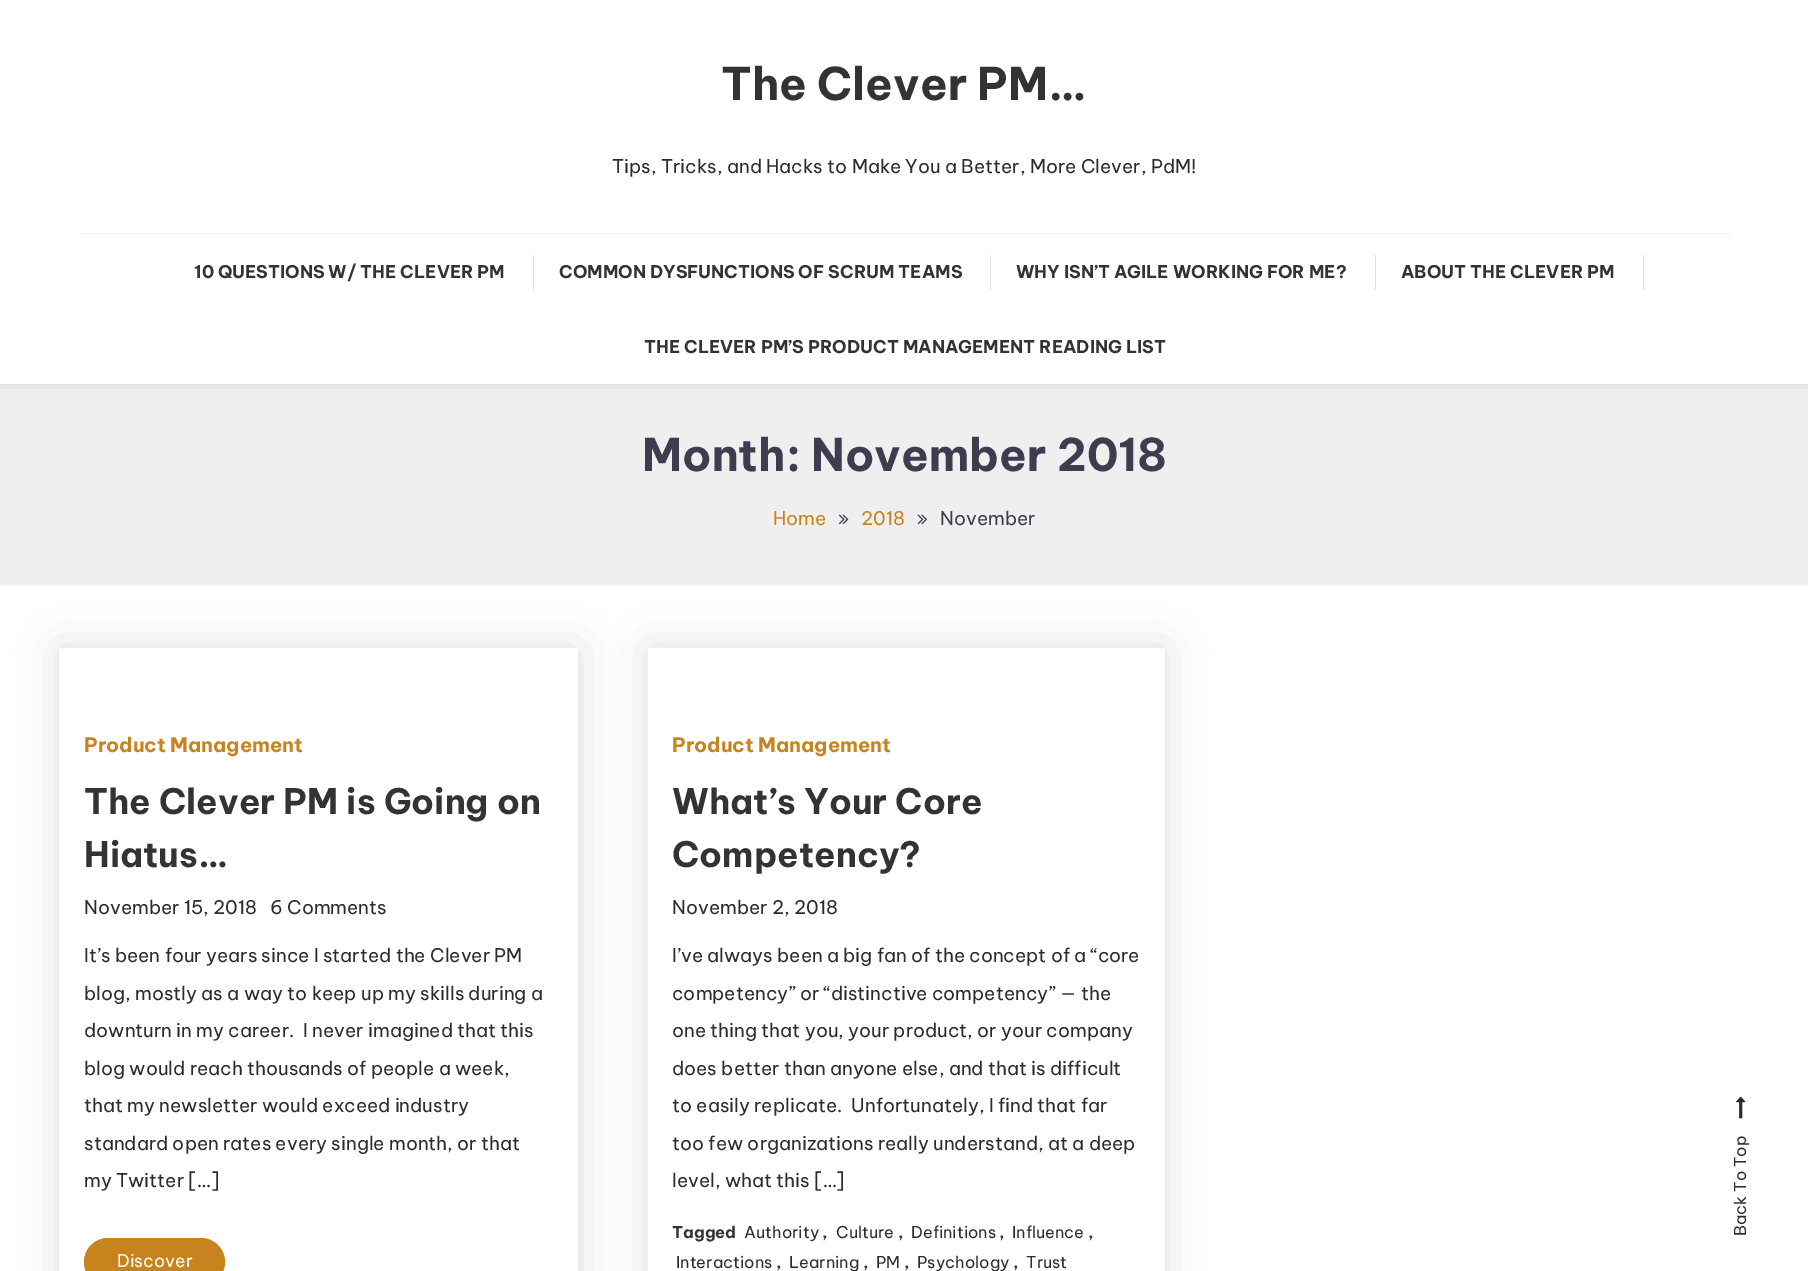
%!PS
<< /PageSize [1808 1271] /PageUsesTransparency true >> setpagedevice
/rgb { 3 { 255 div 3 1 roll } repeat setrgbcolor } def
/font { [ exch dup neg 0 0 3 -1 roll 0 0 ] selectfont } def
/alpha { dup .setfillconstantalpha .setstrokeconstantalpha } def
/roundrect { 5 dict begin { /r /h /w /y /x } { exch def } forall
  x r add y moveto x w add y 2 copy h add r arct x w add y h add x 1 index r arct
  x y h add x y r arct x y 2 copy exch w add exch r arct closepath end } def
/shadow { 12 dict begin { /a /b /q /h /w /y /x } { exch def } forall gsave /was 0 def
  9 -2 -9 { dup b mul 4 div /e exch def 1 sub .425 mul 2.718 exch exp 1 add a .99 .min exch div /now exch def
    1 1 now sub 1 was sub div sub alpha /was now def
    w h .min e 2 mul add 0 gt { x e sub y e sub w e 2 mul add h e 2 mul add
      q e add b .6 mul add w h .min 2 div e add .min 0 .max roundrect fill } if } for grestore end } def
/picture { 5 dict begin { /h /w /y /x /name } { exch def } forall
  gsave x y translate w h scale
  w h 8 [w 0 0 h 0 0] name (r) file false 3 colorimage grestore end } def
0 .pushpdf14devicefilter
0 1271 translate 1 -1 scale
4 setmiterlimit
255 255 255 rgb
0 0 1808 1271 rectfill
239 239 239 rgb
0 384 1808 201 rectfill
gsave
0 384 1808 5 rectclip
0 0 0 rgb
0 0 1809 384 0 6 0.1 shadow
grestore
[
  [80 233 1650 1 238 238 238]
  [533 255 1 35 225 225 225]
  [990 255 1 35 225 225 225]
  [1375 255 1 35 225 225 225]
  [1643 255 1 35 225 225 225]
] { aload pop rgb rectfill } forall
(img/1.rgb) 838 514 11 11 picture
(img/2.rgb) 917 514 10 11 picture
gsave
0 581 moveto 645 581 lineto 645 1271 lineto 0 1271 lineto closepath 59 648 moveto 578 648 lineto 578 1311 lineto 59 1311 lineto closepath eoclip newpath
0 0 0 rgb
59 648 519 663 0 22 0.13 shadow
grestore
199 131 29 rgb
84.5 1238.5 140 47 23.5 roundrect gsave fill grestore
stroke
gsave
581 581 moveto 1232 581 lineto 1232 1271 lineto 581 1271 lineto closepath 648 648 moveto 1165 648 lineto 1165 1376 lineto 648 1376 lineto closepath eoclip newpath
0 0 0 rgb
648 648 517 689 0 22 0.13 shadow
grestore
(img/3.rgb) 1736 1096 10 23 picture
/BeVietnamPro-Bold 45 font
51 51 51 rgb
721 100 moveto (The Clever PM…) show
/BeVietnamPro-Regular 18.75 font
48 43 43 rgb
612 173 moveto (Tips, Tricks, and Hacks to Make You a Better, More Clever, PdM!) show
/BeVietnamPro-Bold 17.5 font
51 51 51 rgb
[
  [(10 QUESTIONS W/ THE CLEVER PM) 194 278]
  [(COMMON DYSFUNCTIONS OF SCRUM TEAMS) 559 278]
  [(WHY ISN’T AGILE WORKING FOR ME?) 1016 278]
  [(ABOUT THE CLEVER PM) 1401 278]
  [(THE CLEVER PM’S PRODUCT MANAGEMENT READING LIST) 644 353]
] { aload pop moveto show } forall
/BeVietnamPro-Bold 45 font
61 61 79 rgb
642 471 moveto (Month: November 2018) show
/BeVietnamPro-Regular 18.75 font
199 131 29 rgb
773 525 moveto (Home) show
861 525 moveto (2018) show
61 61 79 rgb
940 525 moveto (November) show
/BeVietnamPro-Bold 20 font
199 131 29 rgb
84 752 moveto (Product Management) show
/BeVietnamPro-Bold 35 font
51 51 51 rgb
84 814 moveto (The Clever PM is Going on) show
84 867 moveto (Hiatus…) show
/BeVietnamPro-Regular 18.75 font
48 43 43 rgb
[
  [(November 15, 2018) 84 914]
  [(6 Comments) 270 914]
  [(It’s been four years since I started the Clever PM) 84 962]
  [(blog, mostly as a way to keep up my skills during a) 84 1000]
  [(downturn in my career.  I never imagined that this) 84 1037]
  [(blog would reach thousands of people a week,) 84 1075]
  [(that my newsletter would exceed industry) 84 1112]
  [(standard open rates every single month, or that) 84 1150]
  [(my Twitter […]) 84 1187]
] { aload pop moveto show } forall
/BeVietnamPro-Regular 17.5 font
255 255 255 rgb
117 1267 moveto (Discover) show
/BeVietnamPro-Bold 20 font
199 131 29 rgb
672 752 moveto (Product Management) show
/BeVietnamPro-Bold 35 font
51 51 51 rgb
672 814 moveto (What’s Your Core) show
672 867 moveto (Competency?) show
/BeVietnamPro-Regular 18.75 font
48 43 43 rgb
[
  [(November 2, 2018) 672 914]
  [(I’ve always been a big fan of the concept of a “core) 672 962]
  [(competency” or “distinctive competency” — the) 672 1000]
  [(one thing that you, your product, or your company) 672 1037]
  [(does better than anyone else, and that is difficult) 672 1075]
  [(to easily replicate.  Unfortunately, I find that far) 672 1112]
  [(too few organizations really understand, at a deep) 672 1150]
  [(level, what this […]) 672 1187]
] { aload pop moveto show } forall
/BeVietnamPro-Bold 16.25 font
51 51 51 rgb
672 1238 moveto (Tagged) show
/BeVietnamPro-Regular 16.25 font
48 43 43 rgb
744 1238 moveto (Authority) show
/BeVietnamPro-Bold 16.25 font
51 51 51 rgb
822 1238 moveto (,) show
/BeVietnamPro-Regular 16.25 font
48 43 43 rgb
836 1238 moveto (Culture) show
/BeVietnamPro-Bold 16.25 font
51 51 51 rgb
898 1238 moveto (,) show
/BeVietnamPro-Regular 16.25 font
48 43 43 rgb
911 1238 moveto (Definitions) show
/BeVietnamPro-Bold 16.25 font
51 51 51 rgb
999 1238 moveto (,) show
/BeVietnamPro-Regular 16.25 font
48 43 43 rgb
1012 1238 moveto (Influence) show
/BeVietnamPro-Bold 16.25 font
51 51 51 rgb
1088 1238 moveto (,) show
/BeVietnamPro-Regular 16.25 font
48 43 43 rgb
676 1268 moveto (Interactions) show
/BeVietnamPro-Bold 16.25 font
51 51 51 rgb
776 1268 moveto (,) show
/BeVietnamPro-Regular 16.25 font
48 43 43 rgb
789 1268 moveto (Learning) show
/BeVietnamPro-Bold 16.25 font
51 51 51 rgb
863 1268 moveto (,) show
/BeVietnamPro-Regular 16.25 font
48 43 43 rgb
876 1268 moveto (PM) show
/BeVietnamPro-Bold 16.25 font
51 51 51 rgb
904 1268 moveto (,) show
/BeVietnamPro-Regular 16.25 font
48 43 43 rgb
917 1268 moveto (Psychology) show
/BeVietnamPro-Bold 16.25 font
51 51 51 rgb
1013 1268 moveto (,) show
/BeVietnamPro-Regular 16.25 font
48 43 43 rgb
1026 1268 moveto (Trust) show
gsave 1746 1236 translate -90 rotate 0 0 moveto (Back To Top) show grestore
.poppdf14devicefilter showpage
